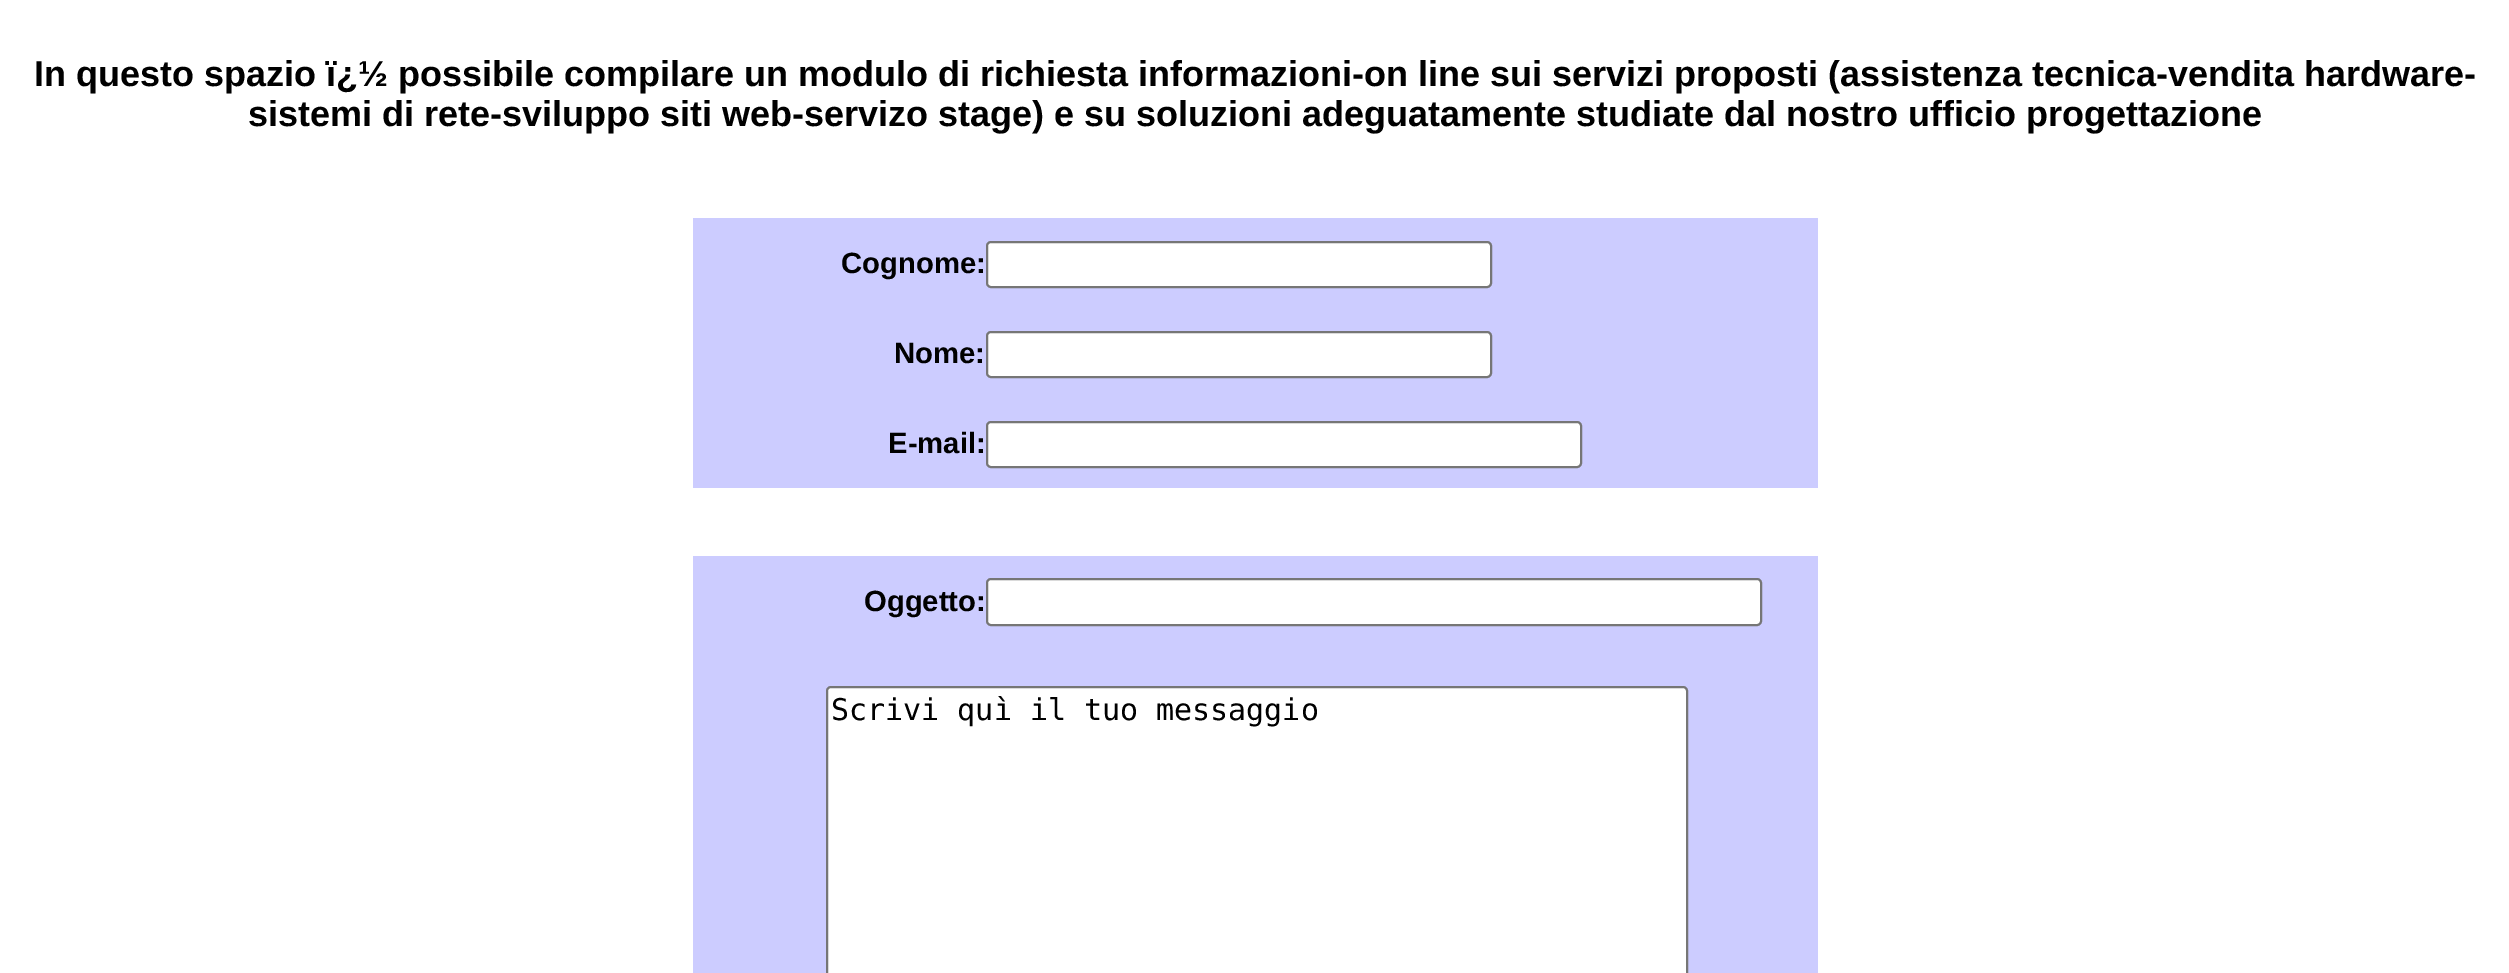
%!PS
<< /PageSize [2509 973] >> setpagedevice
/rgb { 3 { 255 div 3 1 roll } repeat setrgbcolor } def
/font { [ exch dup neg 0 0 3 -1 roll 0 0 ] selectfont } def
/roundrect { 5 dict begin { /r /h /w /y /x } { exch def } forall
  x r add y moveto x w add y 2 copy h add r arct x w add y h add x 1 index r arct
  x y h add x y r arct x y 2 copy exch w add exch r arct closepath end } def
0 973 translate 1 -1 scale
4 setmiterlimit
255 255 255 rgb
0 0 2509 973 rectfill
204 204 255 rgb
693 218 1125 270 rectfill
255 255 255 rgb
987 242 504 45 4 roundrect gsave fill grestore
118 118 118 rgb
2 setlinewidth
stroke
255 255 255 rgb
987 332 504 45 4 roundrect gsave fill grestore
118 118 118 rgb
stroke
255 255 255 rgb
987 422 594 45 4 roundrect gsave fill grestore
118 118 118 rgb
stroke
204 204 255 rgb
693 556 1125 417 rectfill
255 255 255 rgb
987 579 774 46 4 roundrect gsave fill grestore
118 118 118 rgb
stroke
255 255 255 rgb
827 687 860 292 4 roundrect gsave fill grestore
118 118 118 rgb
stroke
/LiberationSans-Bold 36 font
0 0 0 rgb
34 86 moveto (In questo spazio ï¿½ possibile compilare un modulo di richiesta informazioni-on line sui servizi proposti \(assistenza tecnica-vendita hardware-) show
248 126 moveto (sistemi di rete-sviluppo siti web-servizo stage\) e su soluzioni adeguatamente studiate dal nostro ufficio progettazione) show
/LiberationSans-Bold 29.25 font
[
  [(Cognome:) 841 273]
  [(Nome:) 894 363]
  [(E-mail:) 888 453]
  [(Oggetto:) 864 611]
] { aload pop moveto show } forall
/DejaVuSansMono-Regular 30 font
831 720 moveto (Scrivi quì il tuo messaggio) show
showpage
